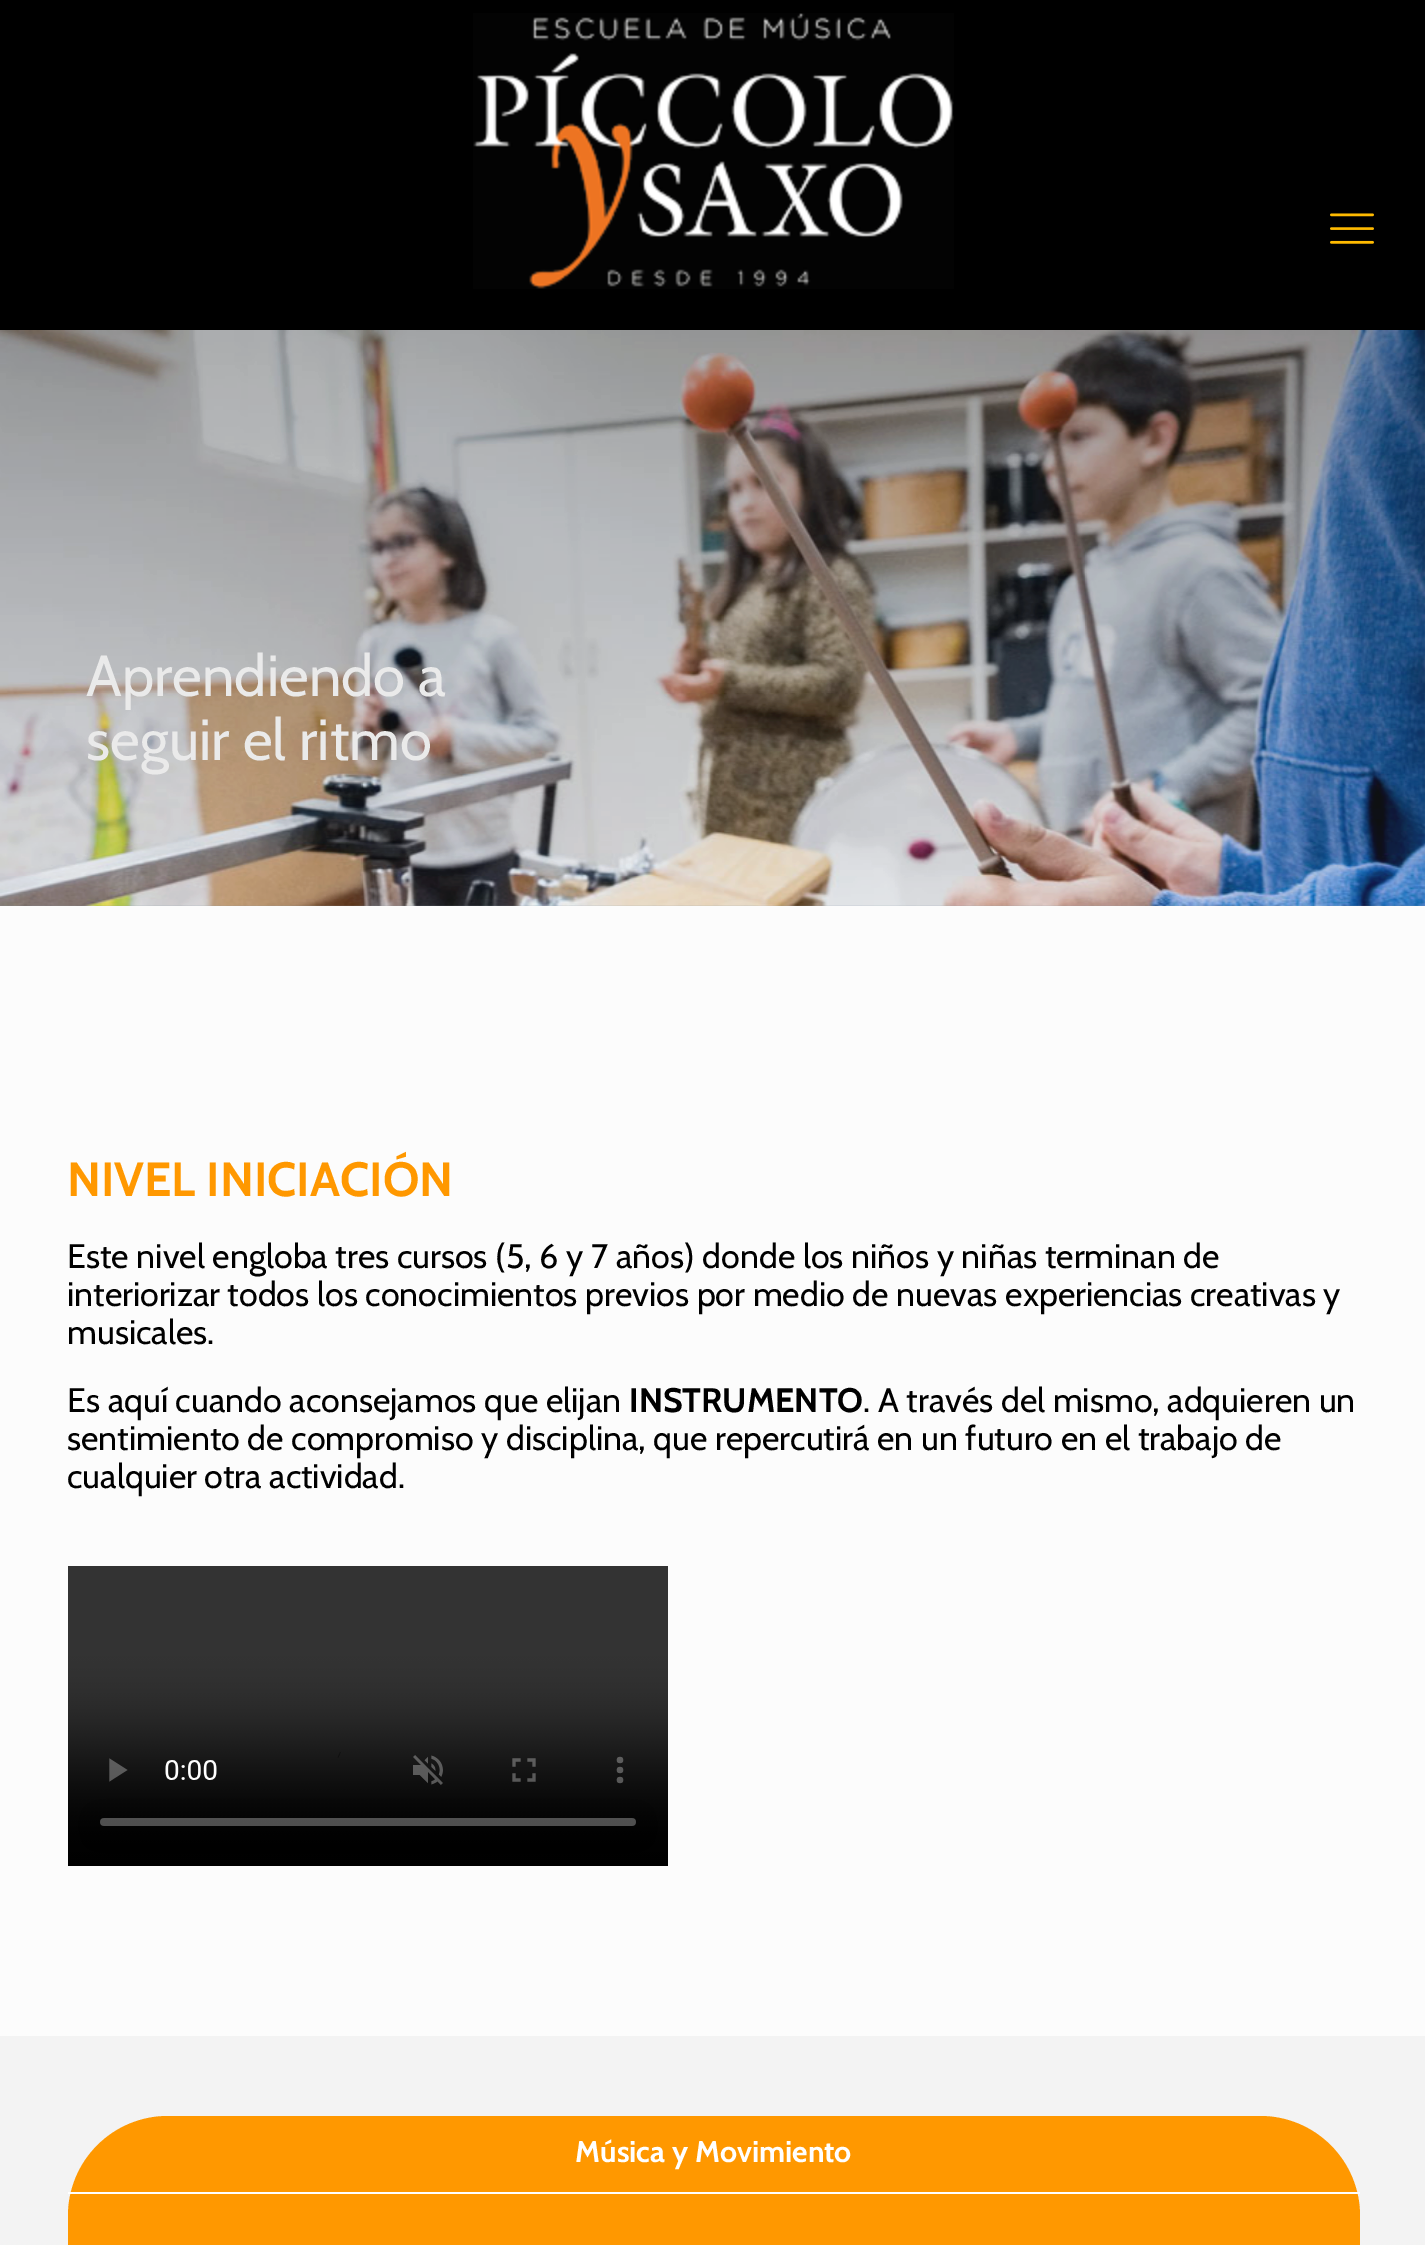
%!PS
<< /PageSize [1425 2245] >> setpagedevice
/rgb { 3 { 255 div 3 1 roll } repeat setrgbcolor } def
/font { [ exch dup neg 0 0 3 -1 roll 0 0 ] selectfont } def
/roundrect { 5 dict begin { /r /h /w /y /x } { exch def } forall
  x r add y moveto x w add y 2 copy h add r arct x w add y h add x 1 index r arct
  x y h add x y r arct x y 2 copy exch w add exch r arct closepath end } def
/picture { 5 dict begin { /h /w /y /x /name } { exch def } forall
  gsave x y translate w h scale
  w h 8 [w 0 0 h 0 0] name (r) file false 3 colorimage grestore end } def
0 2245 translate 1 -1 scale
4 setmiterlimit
252 252 252 rgb
0 0 1425 2245 rectfill
0 0 0 rgb
0 0 1425 330 rectfill
(img/1.rgb) 473 13 481 276 picture
(img/2.rgb) 1330 213 44 31 picture
(img/3.rgb) 0 330 1425 576 picture
(img/4.rgb) 68 1566 600 300 picture
243 243 243 rgb
0 2036 1425 209 rectfill
255 152 0 rgb
68 2116 1292 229 100 roundrect fill
255 255 255 rgb
68 2192 1292 2 rectfill
/Cabin-Regular 58 font
234 234 234 rgb
86 696 moveto (Aprendiendo a) show
86 760 moveto (seguir el ritmo) show
/Cabin-Bold 48 font
255 152 0 rgb
67 1196 moveto (NIVEL INICIACIÓN) show
/Cabin-Regular 34 font
0 0 0 rgb
[
  [(Este nivel engloba tres cursos \(5, 6 y 7 años\) donde los niños y niñas terminan de) 67 1268]
  [(interiorizar todos los conocimientos previos por medio de nuevas experiencias creativas y) 67 1306]
  [(musicales.) 67 1344]
  [(Es aquí cuando aconsejamos que elijan) 67 1412]
] { aload pop moveto show } forall
/Cabin-Bold 34 font
629 1412 moveto (INSTRUMENTO) show
/Cabin-Regular 34 font
[
  [(. A través del mismo, adquieren un) 863 1412]
  [(sentimiento de compromiso y disciplina, que repercutirá en un futuro en el trabajo de) 67 1450]
  [(cualquier otra actividad.) 67 1488]
] { aload pop moveto show } forall
/Cabin-Bold 30 font
255 255 255 rgb
575 2162 moveto (Música y Movimiento) show
showpage
